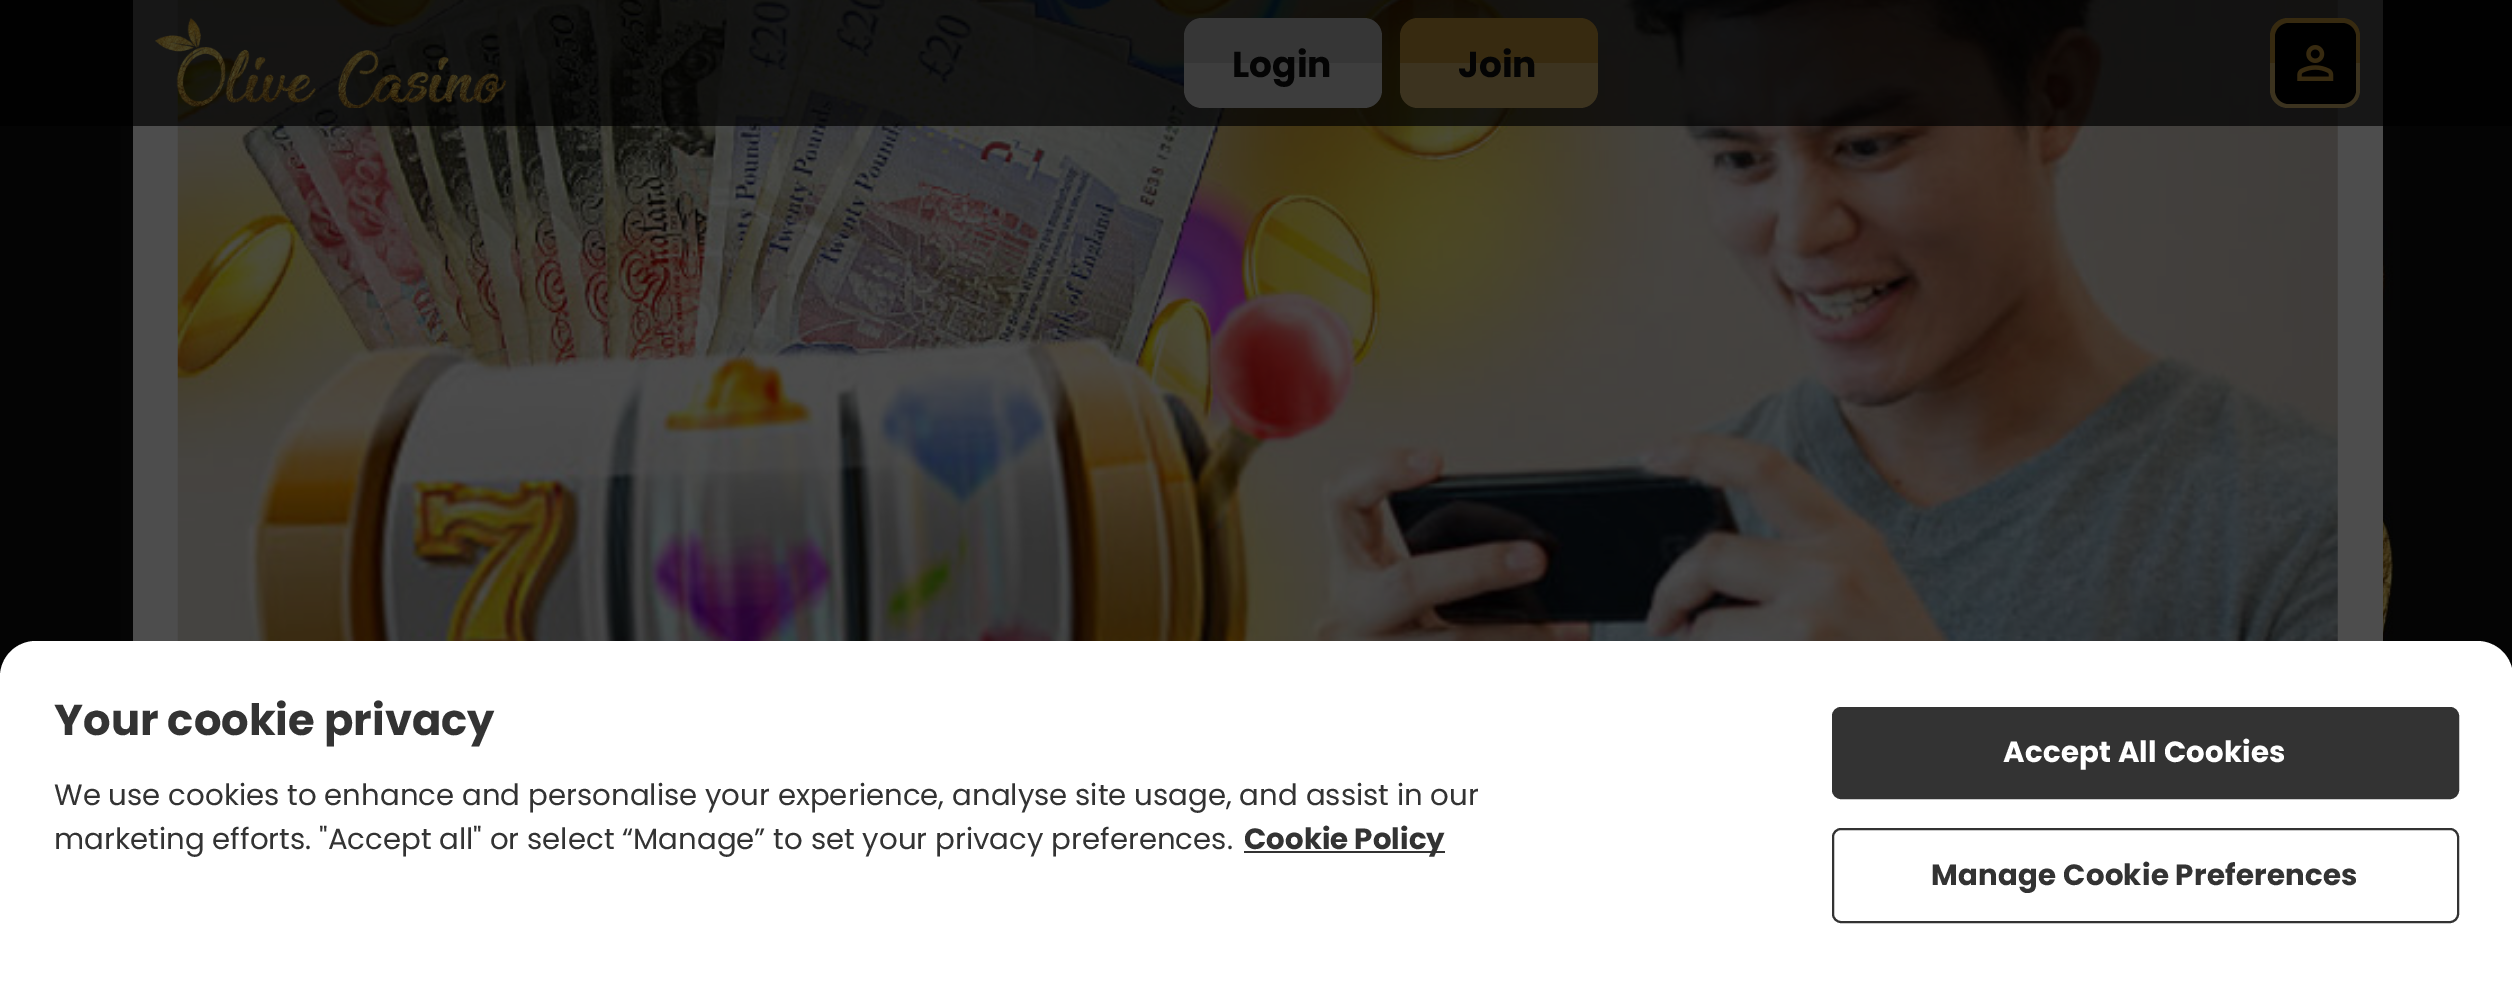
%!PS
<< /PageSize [2512 987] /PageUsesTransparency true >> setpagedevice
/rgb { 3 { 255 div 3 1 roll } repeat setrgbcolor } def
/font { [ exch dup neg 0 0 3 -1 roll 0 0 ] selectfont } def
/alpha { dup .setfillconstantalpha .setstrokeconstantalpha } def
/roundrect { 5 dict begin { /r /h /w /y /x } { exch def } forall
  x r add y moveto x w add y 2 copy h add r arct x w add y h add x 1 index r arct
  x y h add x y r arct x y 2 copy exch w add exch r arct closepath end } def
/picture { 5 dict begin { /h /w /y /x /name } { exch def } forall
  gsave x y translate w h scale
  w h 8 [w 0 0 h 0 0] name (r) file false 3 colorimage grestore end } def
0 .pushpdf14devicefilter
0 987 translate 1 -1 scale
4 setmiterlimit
4 4 4 rgb
0 0 2512 987 rectfill
(img/1.rgb) 121 0 2312 641 picture
77 77 77 rgb
133 0 2250 641 rectfill
(img/2.rgb) 177 0 2161 641 picture
0.7 alpha
0 0 0 rgb
0 0 2512 126 rectfill
1 alpha
(img/3.rgb) 155 18 352 90 picture
61 61 61 rgb
1184 63 moveto 1382 63 lineto 1382 90 lineto 1382 100 1374 108 1364 108 curveto 1202 108 lineto 1192 108 1184 100 1184 90 curveto closepath fill
54 54 54 rgb
1202 18 moveto 1364 18 lineto 1374 18 1382 26 1382 36 curveto 1382 63 lineto 1184 63 lineto 1184 36 lineto 1184 26 1192 18 1202 18 curveto closepath fill
60 51 31 rgb
1400 63 moveto 1598 63 lineto 1598 90 lineto 1598 100 1590 108 1580 108 curveto 1418 108 lineto 1408 108 1400 100 1400 90 curveto closepath fill
55 42 16 rgb
1418 18 moveto 1580 18 lineto 1590 18 1598 26 1598 36 curveto 1598 63 lineto 1400 63 lineto 1400 36 lineto 1400 26 1408 18 1418 18 curveto closepath fill
60 51 31 rgb
2270 63 moveto 2360 63 lineto 2360 90 lineto 2360 100 2352 108 2342 108 curveto 2288 108 lineto 2278 108 2270 100 2270 90 curveto closepath fill
55 42 16 rgb
2288 18 moveto 2342 18 lineto 2352 18 2360 26 2360 36 curveto 2360 63 lineto 2270 63 lineto 2270 36 lineto 2270 26 2278 18 2288 18 curveto closepath fill
0 0 0 rgb
2275 23 81 81 14 roundrect fill
(img/4.rgb) 2297 45 37 36 picture
255 255 255 rgb
36 641 moveto 2477 641 lineto 2497 641 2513 657 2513 677 curveto 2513 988 lineto 0 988 lineto 0 677 lineto 0 657 16 641 36 641 curveto closepath fill
51 51 51 rgb
1244 851 201 2 rectfill
1833 708 625 90 8 roundrect gsave fill grestore
2 setlinewidth
stroke
1833 829 625 93 8 roundrect stroke
/Poppins-Bold 36 font
4 4 4 rgb
1232 77 moveto (Login) show
1458 77 moveto (Join) show
/Poppins-Bold 43.25 font
51 51 51 rgb
54 735 moveto (Your cookie privacy) show
/Poppins-Regular 29.25 font
54 805 moveto (We use cookies to enhance and personalise your experience, analyse site usage, and assist in our) show
54 849 moveto (marketing efforts. "Accept all" or select “Manage” to set your privacy preferences.) show
/Poppins-Bold 29.25 font
1244 849 moveto (Cookie Policy) show
255 255 255 rgb
2003 762 moveto 0.25 0 (Accept All Cookies) ashow
51 51 51 rgb
1931 885 moveto 0.25 0 (Manage Cookie Preferences) ashow
.poppdf14devicefilter showpage
